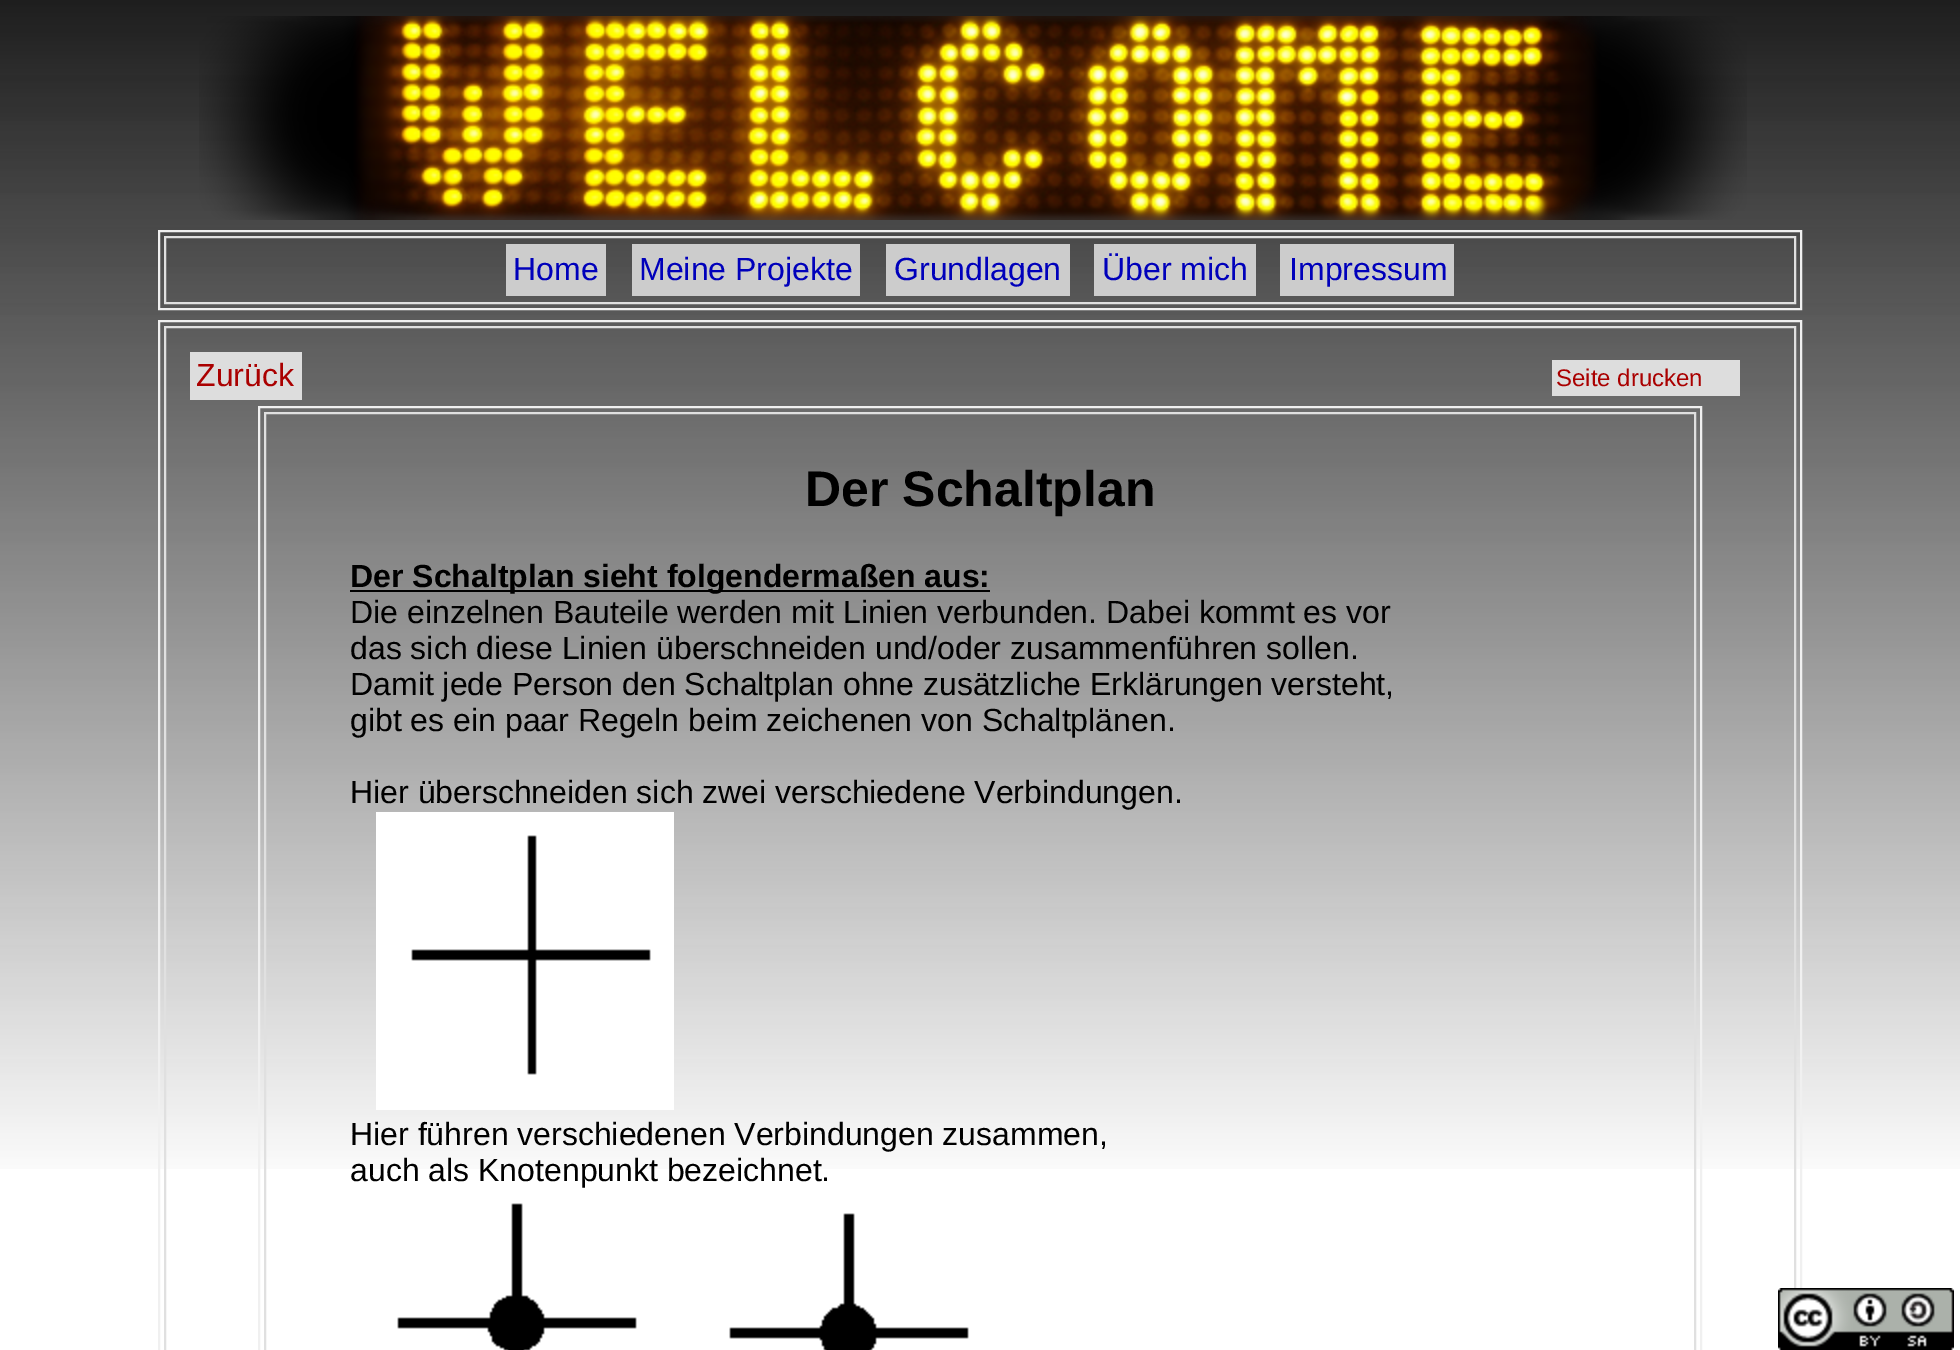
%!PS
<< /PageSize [1960 1350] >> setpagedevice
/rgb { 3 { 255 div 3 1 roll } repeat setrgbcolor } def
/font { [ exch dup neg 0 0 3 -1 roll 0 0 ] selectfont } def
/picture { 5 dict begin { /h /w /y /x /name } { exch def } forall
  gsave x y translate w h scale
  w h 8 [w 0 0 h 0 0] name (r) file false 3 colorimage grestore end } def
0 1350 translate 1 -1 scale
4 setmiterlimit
255 255 255 rgb
0 0 1960 1350 rectfill
(img/1.rgb) 0 0 1960 1169 picture
(img/2.rgb) 199 16 1548 204 picture
240 240 240 rgb
2 setlinewidth
159 231 1642 78 rectstroke
224 224 224 rgb
165 237 1630 66 rectstroke
[
  [506 244 100 52 204 204 204]
  [632 244 228 52 204 204 204]
  [886 244 184 52 204 204 204]
  [1094 244 162 52 204 204 204]
  [1280 244 174 52 204 204 204]
] { aload pop rgb rectfill } forall
240 240 240 rgb
159 321 1642 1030 rectstroke
224 224 224 rgb
165 327 1630 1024 rectstroke
221 221 221 rgb
190 352 112 48 rectfill
1552 360 188 36 rectfill
240 240 240 rgb
259 407 1442 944 rectstroke
224 224 224 rgb
265 413 1430 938 rectstroke
0 0 0 rgb
350 590 640 2 rectfill
(img/3.rgb) 376 812 298 298 picture
(img/4.rgb) 397 1203 240 147 picture
(img/5.rgb) 729 1213 240 137 picture
(img/6.rgb) 1778 1288 176 62 picture
/LiberationSans-Regular 32 font
0 0 187 rgb
[
  [(Home) 513 280]
  [(Meine Projekte) 639 280]
  [(Grundlagen) 894 280]
  [(Über mich) 1102 280]
  [(Impressum) 1289 280]
] { aload pop moveto show } forall
170 0 0 rgb
196 386 moveto (Zurück) show
/LiberationSans-Regular 24 font
1556 386 moveto (Seite drucken) show
/LiberationSans-Bold 50 font
0 0 0 rgb
805 506 moveto (Der Schaltplan) show
/LiberationSans-Bold 32 font
350 587 moveto (Der Schaltplan sieht folgendermaßen aus:) show
/LiberationSans-Regular 32 font
[
  [(Die einzelnen Bauteile werden mit Linien verbunden. Dabei kommt es vor) 350 623]
  [(das sich diese Linien überschneiden und/oder zusammenführen sollen.) 350 659]
  [(Damit jede Person den Schaltplan ohne zusätzliche Erklärungen versteht,) 350 695]
  [(gibt es ein paar Regeln beim zeichenen von Schaltplänen.) 350 731]
  [(Hier überschneiden sich zwei verschiedene Verbindungen.) 350 803]
  [(Hier führen verschiedenen Verbindungen zusammen,) 350 1145]
  [(auch als Knotenpunkt bezeichnet.) 350 1181]
] { aload pop moveto show } forall
showpage
